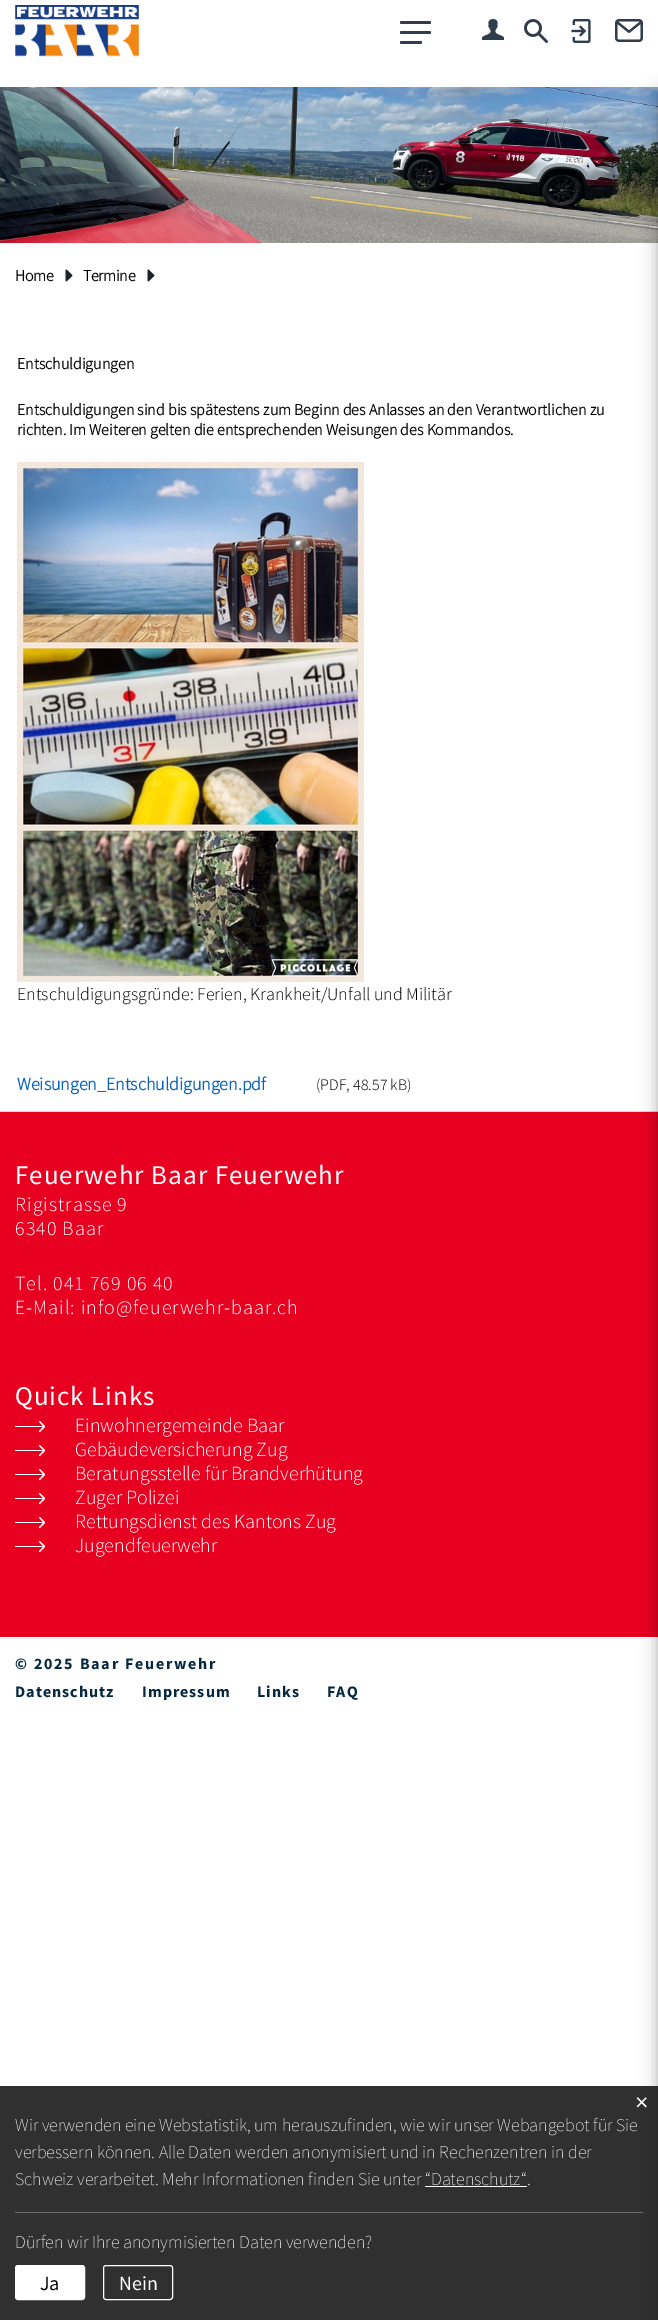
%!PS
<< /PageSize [658 2320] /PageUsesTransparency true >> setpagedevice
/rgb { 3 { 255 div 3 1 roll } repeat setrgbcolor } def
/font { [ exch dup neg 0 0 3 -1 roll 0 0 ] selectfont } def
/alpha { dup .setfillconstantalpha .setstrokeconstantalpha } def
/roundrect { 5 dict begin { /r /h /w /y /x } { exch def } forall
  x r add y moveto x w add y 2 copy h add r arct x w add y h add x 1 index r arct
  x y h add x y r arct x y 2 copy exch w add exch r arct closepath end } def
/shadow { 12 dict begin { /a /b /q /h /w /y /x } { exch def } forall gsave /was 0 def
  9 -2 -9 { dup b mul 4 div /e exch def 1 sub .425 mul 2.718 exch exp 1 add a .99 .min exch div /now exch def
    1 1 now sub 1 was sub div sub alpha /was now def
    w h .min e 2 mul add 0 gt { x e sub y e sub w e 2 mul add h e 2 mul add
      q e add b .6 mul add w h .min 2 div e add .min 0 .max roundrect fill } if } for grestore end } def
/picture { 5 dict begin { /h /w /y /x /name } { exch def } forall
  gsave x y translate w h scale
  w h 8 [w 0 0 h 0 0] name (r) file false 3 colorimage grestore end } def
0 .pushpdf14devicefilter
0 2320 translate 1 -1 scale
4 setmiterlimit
255 255 255 rgb
0 0 658 2320 rectfill
(img/1.rgb) 15 5 124 52 picture
49 61 76 rgb
400 21 31 3 1.5 roundrect fill
400 31 31 3 1.5 roundrect fill
400 41 22 3 1.5 roundrect fill
(img/2.rgb) 482 19 22 21 picture
(img/3.rgb) 524 19 24 24 picture
(img/4.rgb) 571 19 20 24 picture
(img/5.rgb) 615 19 28 23 picture
(img/6.rgb) 0 87 658 156 picture
216 216 216 rgb
0 1111 658 1 rectfill
232 0 32 rgb
0 1112 658 525 rectfill
0 0 0 rgb
658 92 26 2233 0 8.5 0.11 shadow
658 92 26 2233 0 8.5 0.11 shadow
(img/7.rgb) 65 269 8 13 picture
(img/7.rgb) 147 269 8 13 picture
(img/8.rgb) 17 462 347 520 picture
658 92 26 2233 0 8.5 0.11 shadow
255 255 255 rgb
1.2 setlinewidth
1 setlinecap
1 setlinejoin
39.5 1421.5 moveto 44.5 1426.5 lineto 39.5 1431.5 lineto stroke
15 1426 29 1 rectfill
39.5 1445.5 moveto 44.5 1450.5 lineto 39.5 1455.5 lineto stroke
15 1450 29 1 rectfill
39.5 1469.5 moveto 44.5 1474.5 lineto 39.5 1479.5 lineto stroke
15 1474 29 1 rectfill
39.5 1493.5 moveto 44.5 1498.5 lineto 39.5 1503.5 lineto stroke
15 1498 29 1 rectfill
39.5 1517.5 moveto 44.5 1522.5 lineto 39.5 1527.5 lineto stroke
15 1522 29 1 rectfill
39.5 1541.5 moveto 44.5 1546.5 lineto 39.5 1551.5 lineto stroke
[
  [15 1546 29 1 255 255 255]
] { aload pop rgb rectfill } forall
0.9 alpha
[
  [0 2086 658 234 25 25 25]
] { aload pop rgb rectfill } forall
1 alpha
[
  [15 2212 628 1 109 109 109]
  [425 2186 102 1 255 255 255]
] { aload pop rgb rectfill } forall
15.5 2265.5 69 34 2.5 roundrect gsave fill grestore
1 setlinewidth
0 setlinecap
0 setlinejoin
stroke
103.5 2265.5 69 34 2.5 roundrect stroke
/SourceSansPro-Bold 16 font
0 0 0 rgb
15 281 moveto -0.25 0 (Home) ashow
83 281 moveto -0.25 0 (Termine) ashow
[
  [(Entschuldigungen) 17 369]
  [(Entschuldigungen sind bis spätestens zum Beginn des Anlasses an den Verantwortlichen zu) 17 415]
  [(richten. Im Weiteren gelten die entsprechenden Weisungen des Kommandos.) 17 435]
] { aload pop moveto show } forall
/SourceSansPro-Light 18 font
17 1000 moveto (Entschuldigungsgründe: Ferien, Krankheit/Unfall und Militär) show
/SourceSansPro-Bold 18 font
8 100 186 rgb
17 1090 moveto (Weisungen_Entschuldigungen.pdf) show
/SourceSansPro-Light 16 font
0 0 0 rgb
316 1090 moveto (\(PDF, 48.57 kB\)) show
/SourceSansPro-Regular 27 font
255 255 255 rgb
15 1184 moveto 1 0 (Feuerwehr Baar Feuerwehr) ashow
/SourceSansPro-Light 20 font
15 1211 moveto 1 0 (Rigistrasse 9) ashow
15 1235 moveto 1 0 (6340 Baar) ashow
15 1290 moveto 1 0 (Tel. 041 769 06 40) ashow
15 1314 moveto 1 0 (E-Mail: info@feuerwehr-baar.ch) ashow
/SourceSansPro-Regular 27 font
15 1405 moveto 1 0 (Quick Links) ashow
/SourceSansPro-Light 20 font
[
  [(Einwohnergemeinde Baar) 75 1432]
  [(Gebäudeversicherung Zug) 75 1456]
  [(Beratungsstelle für Brandverhütung) 75 1480]
  [(Zuger Polizei) 75 1504]
  [(Rettungsdienst des Kantons Zug) 75 1528]
  [(Jugendfeuerwehr) 75 1552]
] { aload pop moveto show } forall
/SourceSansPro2-Bold 16 font
6 41 63 rgb
15 1669 moveto 1.75 0 (© 2025 Baar Feuerwehr) ashow
15 1697 moveto 1 0 (Datenschutz) ashow
142 1697 moveto 1 0 (Impressum) ashow
257 1697 moveto 1 0 (Links) ashow
327 1697 moveto 1 0 (FAQ) ashow
/LiberationSans-Regular 23 font
255 255 255 rgb
635 2110 moveto (×) show
/SourceSansPro-ExtraLight 18 font
[
  [(Wir verwenden eine Webstatistik, um herauszufinden, wie wir unser Webangebot für Sie) 15 2131]
  [(verbessern können. Alle Daten werden anonymisiert und in Rechenzentren in der) 15 2158]
  [(Schweiz verarbeitet. Mehr Informationen finden Sie unter “Datenschutz“.) 15 2185]
  [(Dürfen wir Ihre anonymisierten Daten verwenden?) 15 2248]
] { aload pop moveto show } forall
/SourceSansPro-Regular 20 font
0 0 0 rgb
40 2290 moveto (Ja) show
255 255 255 rgb
119 2290 moveto (Nein) show
.poppdf14devicefilter showpage
